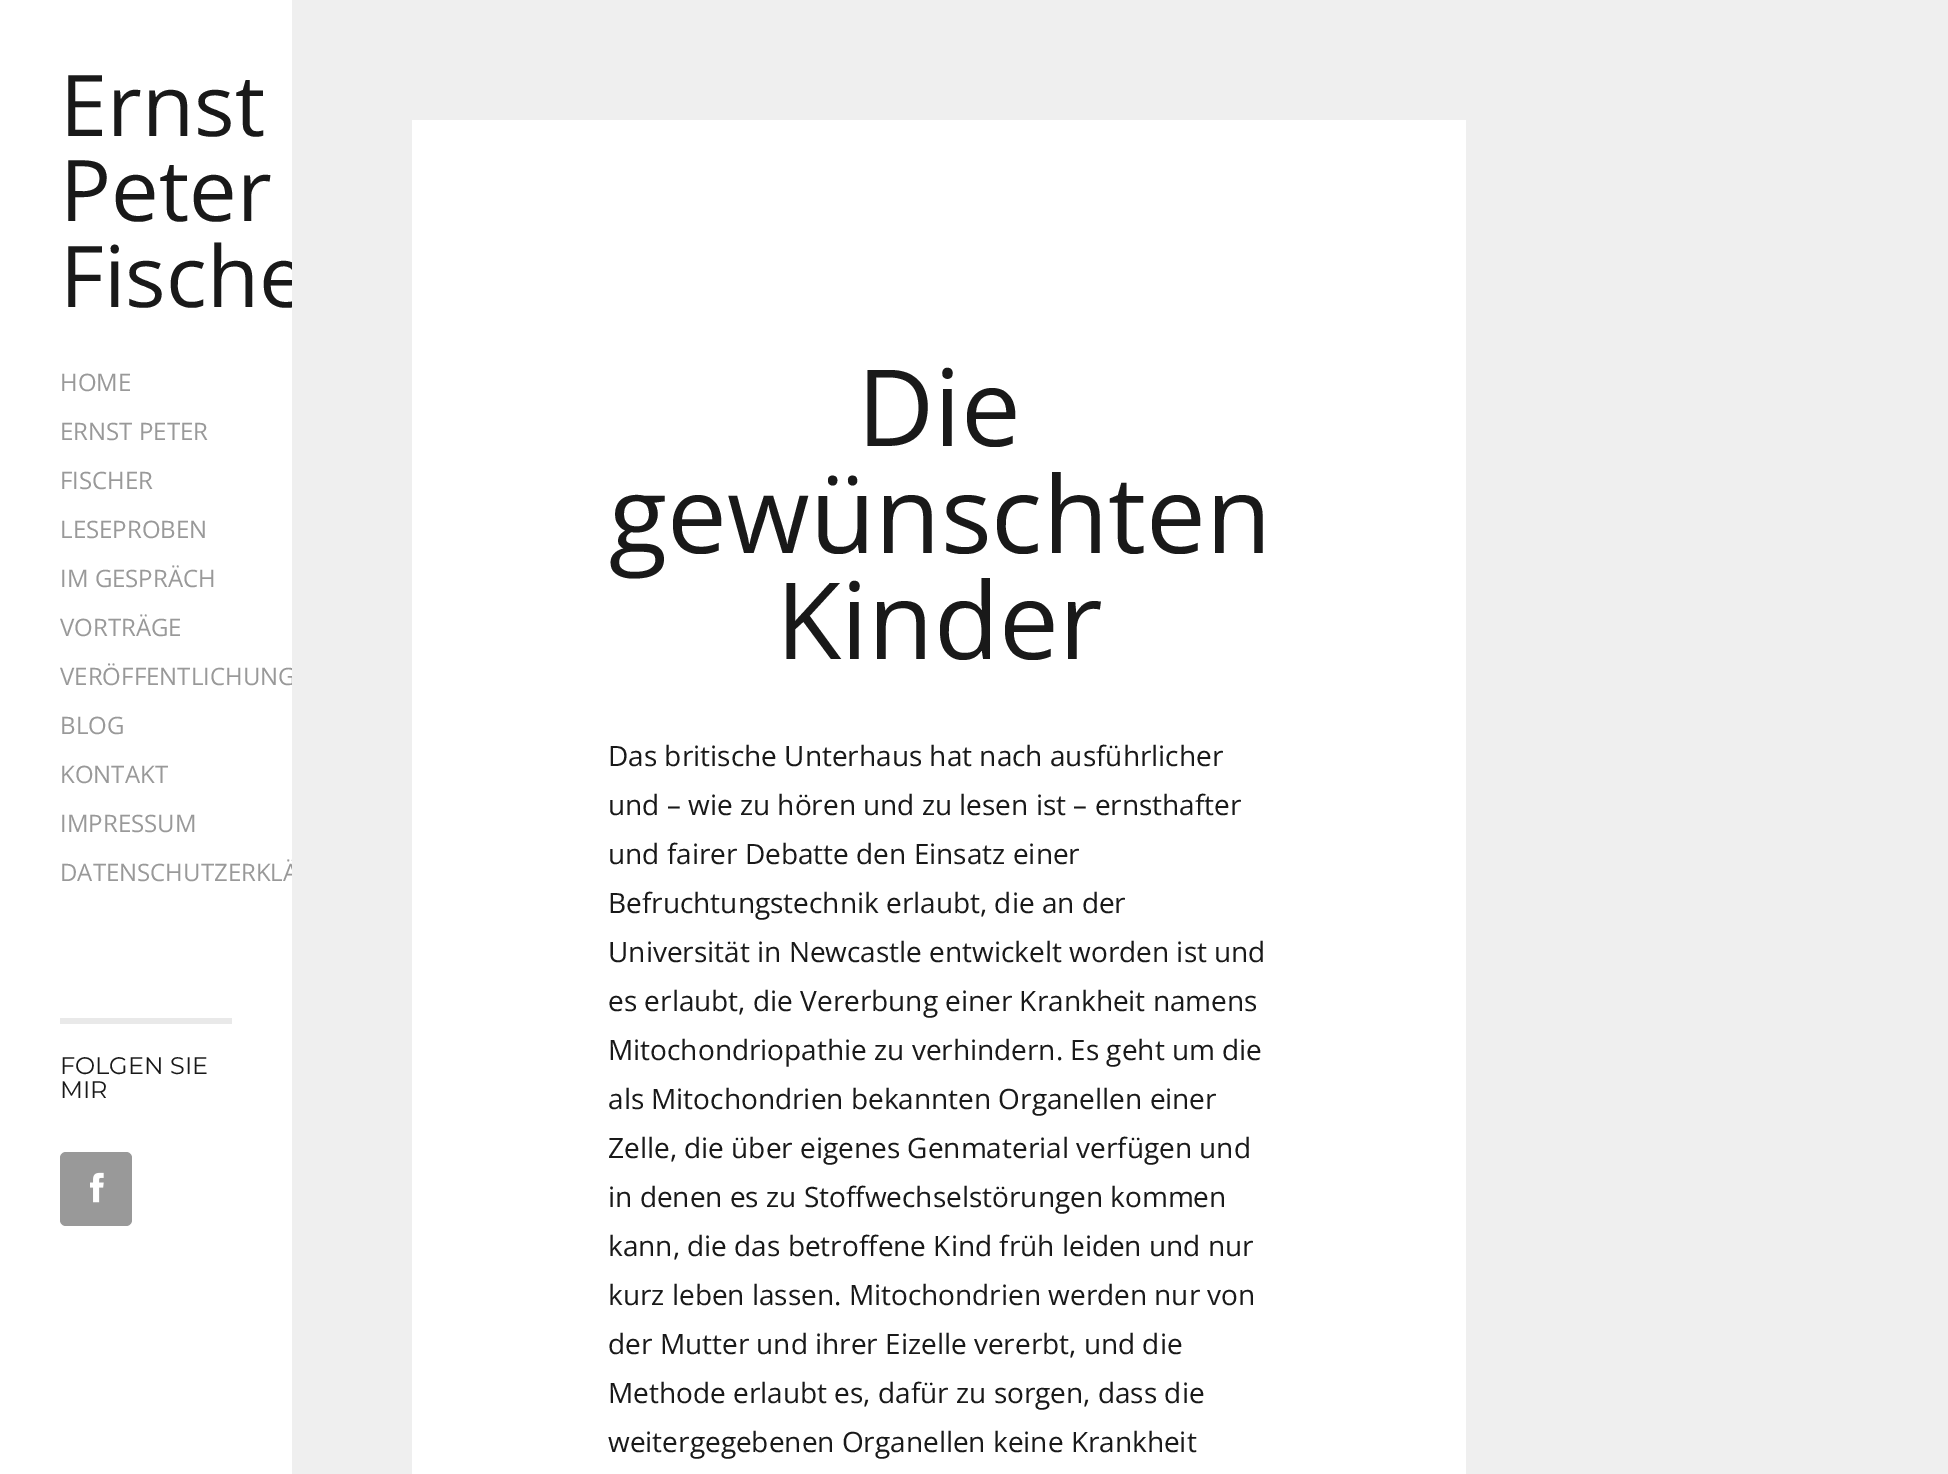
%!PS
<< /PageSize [1948 1474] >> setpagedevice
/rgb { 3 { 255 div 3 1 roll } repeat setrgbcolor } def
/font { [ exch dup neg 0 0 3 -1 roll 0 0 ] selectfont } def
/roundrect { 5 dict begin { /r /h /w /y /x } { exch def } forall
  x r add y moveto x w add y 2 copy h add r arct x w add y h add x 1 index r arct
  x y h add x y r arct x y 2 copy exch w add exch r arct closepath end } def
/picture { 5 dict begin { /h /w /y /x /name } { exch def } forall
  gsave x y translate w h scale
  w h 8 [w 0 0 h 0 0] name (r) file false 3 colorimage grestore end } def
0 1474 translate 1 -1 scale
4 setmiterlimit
255 255 255 rgb
0 0 1948 1474 rectfill
233 233 233 rgb
60 1018 172 6 rectfill
153 153 153 rgb
60 1152 72 74 6 roundrect fill
(img/1.rgb) 90 1172 14 31 picture
/OpenSans-Regular 85 font
25 25 25 rgb
[
  [(Ernst) 60 136]
  [(Peter) 60 221]
  [(Fische) 60 307]
] { aload pop moveto show } forall
/OpenSans-Regular 24 font
153 153 153 rgb
[
  [(HOME) 60 391]
  [(ERNST PETER) 60 440]
  [(FISCHER) 60 489]
  [(LESEPROBEN) 60 538]
  [(IM GESPRÄCH) 60 587]
  [(VORTRÄGE) 60 636]
  [(VERÖFFENTLICHUNG) 60 685]
  [(BLOG) 60 734]
  [(KONTAKT) 60 783]
  [(IMPRESSUM) 60 832]
  [(DATENSCHUTZERKLÄ) 60 881]
] { aload pop moveto show } forall
/Montserrat-Regular 24 font
25 25 25 rgb
60 1074 moveto (FOLGEN SIE) show
60 1098 moveto (MIR) show
239 239 239 rgb
292 0 1656 1474 rectfill
255 255 255 rgb
412 120 1054 1354 rectfill
/OpenSans-Regular 106.75 font
25 25 25 rgb
[
  [(Die) 857 446]
  [(gewünschten) 609 553]
  [(Kinder) 776 659]
] { aload pop moveto show } forall
/OpenSans-Regular 28 font
[
  [(Das britische Unterhaus hat nach ausführlicher) 608 766]
  [(und – wie zu hören und zu lesen ist – ernsthafter) 608 815]
  [(und fairer Debatte den Einsatz einer) 608 864]
  [(Befruchtungstechnik erlaubt, die an der) 608 913]
  [(Universität in Newcastle entwickelt worden ist und) 608 962]
  [(es erlaubt, die Vererbung einer Krankheit namens) 608 1011]
  [(Mitochondriopathie zu verhindern. Es geht um die) 608 1060]
  [(als Mitochondrien bekannten Organellen einer) 608 1109]
  [(Zelle, die über eigenes Genmaterial verfügen und) 608 1158]
  [(in denen es zu Stoffwechselstörungen kommen) 608 1207]
  [(kann, die das betroffene Kind früh leiden und nur) 608 1256]
  [(kurz leben lassen. Mitochondrien werden nur von) 608 1305]
  [(der Mutter und ihrer Eizelle vererbt, und die) 608 1354]
  [(Methode erlaubt es, dafür zu sorgen, dass die) 608 1403]
  [(weitergegebenen Organellen keine Krankheit) 608 1452]
] { aload pop moveto show } forall
showpage
